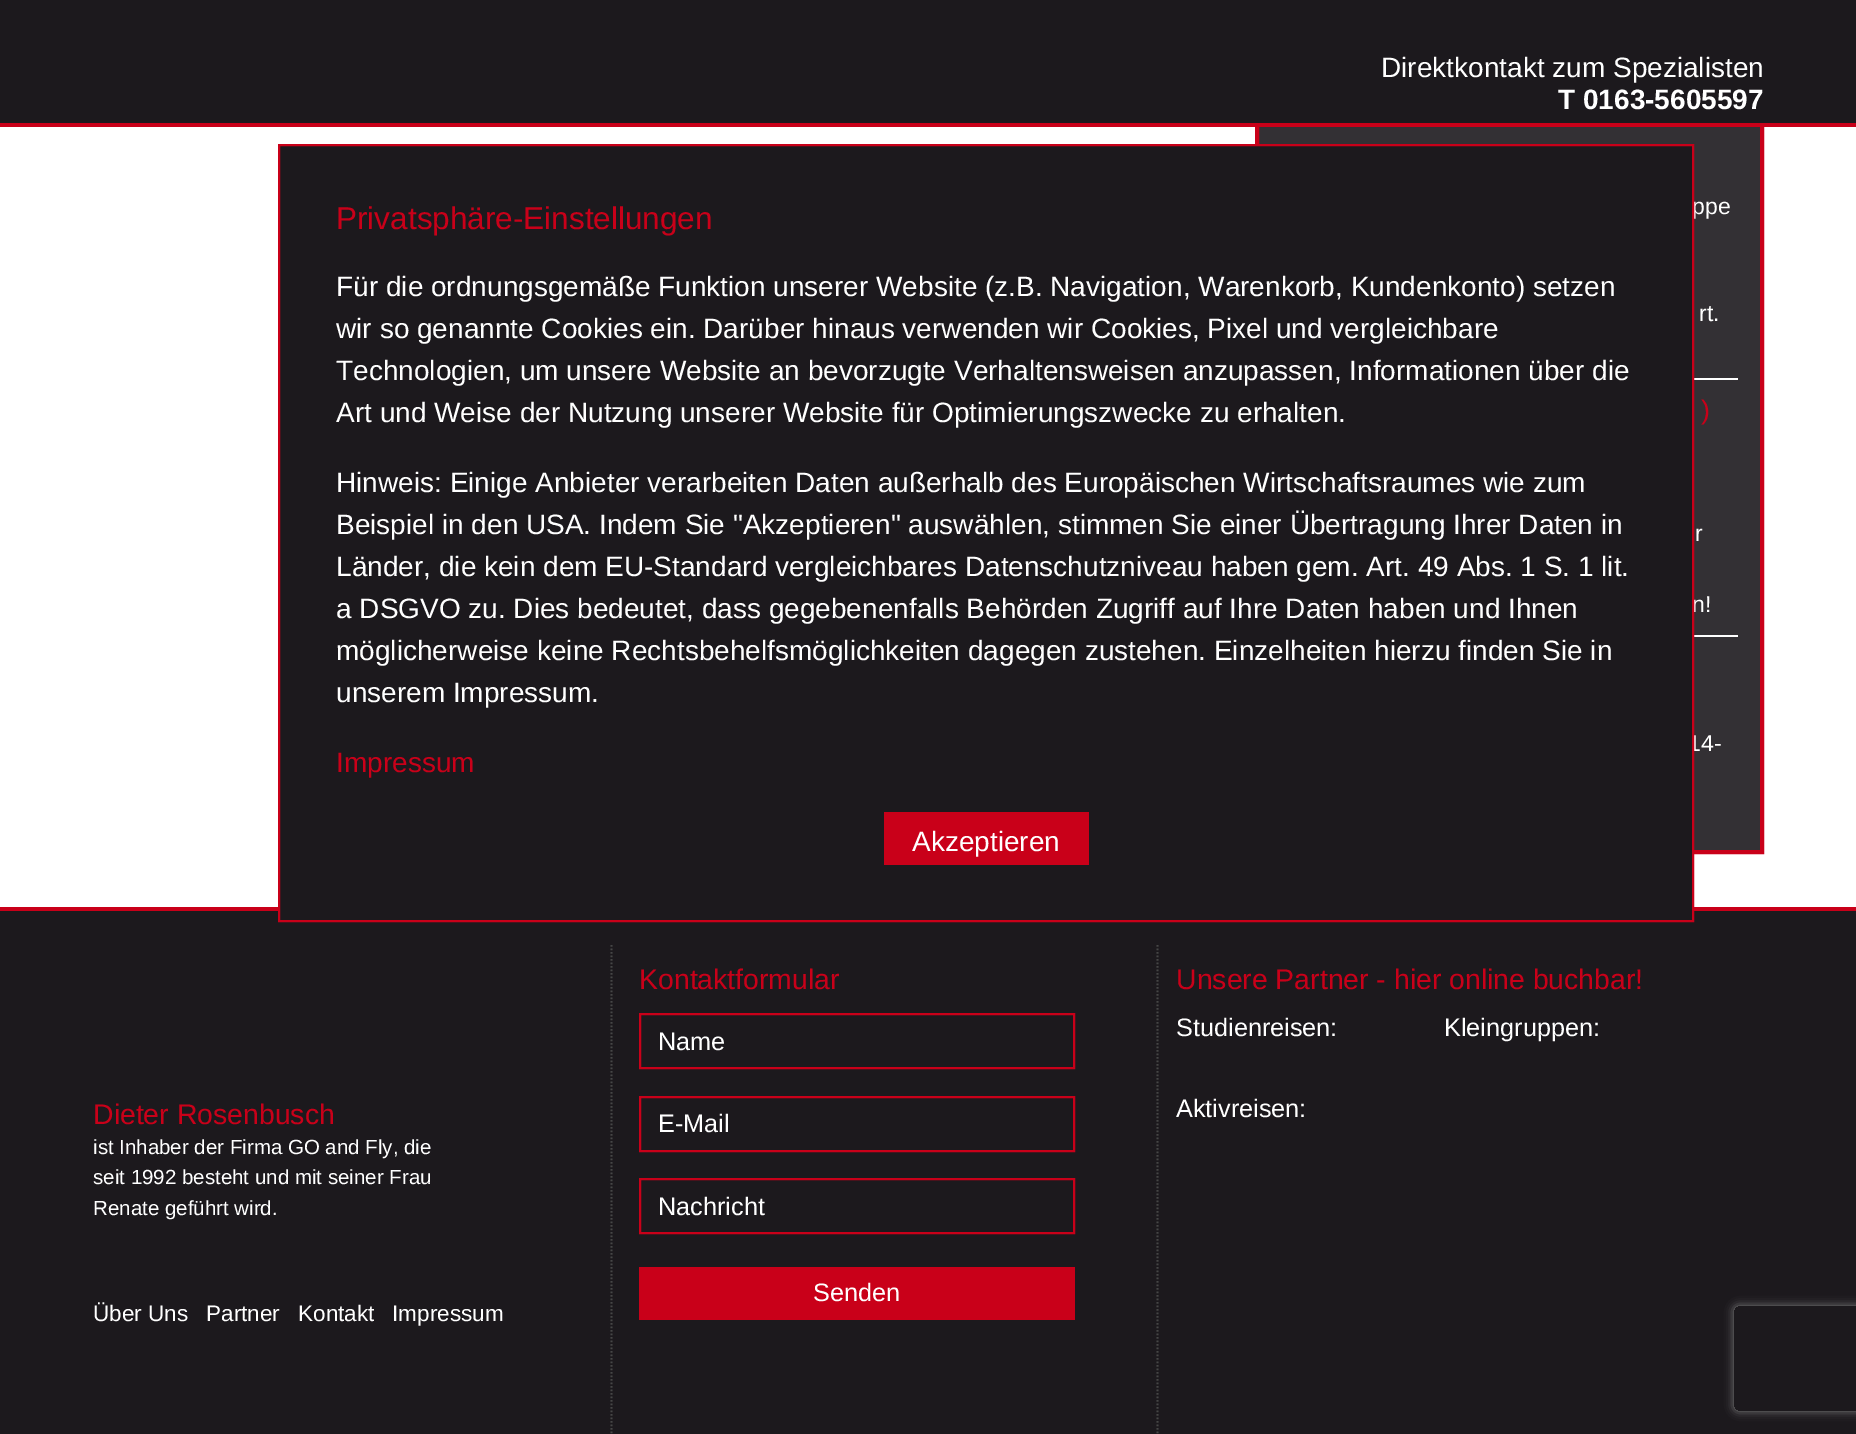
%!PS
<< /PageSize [1856 1434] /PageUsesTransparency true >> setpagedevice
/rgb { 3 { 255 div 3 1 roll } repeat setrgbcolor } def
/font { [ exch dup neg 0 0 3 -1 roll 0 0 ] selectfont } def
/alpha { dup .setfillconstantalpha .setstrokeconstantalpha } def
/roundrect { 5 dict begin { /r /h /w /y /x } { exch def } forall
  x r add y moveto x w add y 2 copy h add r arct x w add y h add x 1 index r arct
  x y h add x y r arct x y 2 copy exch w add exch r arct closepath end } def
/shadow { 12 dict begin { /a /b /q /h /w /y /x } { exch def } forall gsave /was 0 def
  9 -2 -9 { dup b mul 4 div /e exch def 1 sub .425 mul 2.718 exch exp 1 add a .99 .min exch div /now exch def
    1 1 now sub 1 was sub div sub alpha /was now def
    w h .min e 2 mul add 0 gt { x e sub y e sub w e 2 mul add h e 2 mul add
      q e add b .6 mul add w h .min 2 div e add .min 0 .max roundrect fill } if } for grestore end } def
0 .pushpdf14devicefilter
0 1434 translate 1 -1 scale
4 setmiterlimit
255 255 255 rgb
0 0 1856 1434 rectfill
51 48 52 rgb
1259 127 501 723 rectfill
201 0 25 rgb
4 setlinewidth
1257 -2 505 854 rectstroke
[
  [0 0 1856 123 28 25 29]
  [0 123 1856 4 201 0 25]
  [1694 378 44 2 255 255 255]
  [1694 635 44 2 255 255 255]
  [0 911 1856 523 28 25 29]
  [0 907 1856 4 201 0 25]
] { aload pop rgb rectfill } forall
70 70 70 rgb
1.8 setlinewidth
[1.75 1.75] 0 setdash
1157.5 945 moveto 1157.5 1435 lineto stroke
611.5 945 moveto 611.5 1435 lineto stroke
201 0 25 rgb
2 setlinewidth
[] 0 setdash
640 1014 434 54 rectstroke
640 1097 434 54 rectstroke
640 1179 434 54 rectstroke
639 1267 436 53 rectfill
gsave
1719 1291 moveto 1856 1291 lineto 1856 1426 lineto 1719 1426 lineto closepath 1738 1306 moveto 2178 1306 lineto 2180 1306 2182 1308 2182 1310 curveto 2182 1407 lineto 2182 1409 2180 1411 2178 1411 curveto 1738 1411 lineto 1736 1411 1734 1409 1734 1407 curveto 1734 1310 lineto 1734 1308 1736 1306 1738 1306 curveto closepath eoclip newpath
128 128 128 rgb
1734 1306 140 105 4 4.5 1 shadow
grestore
/LiberationSans-Regular 28 font
255 255 255 rgb
1381 77 moveto (Direktkontakt zum Spezialisten) show
/LiberationSans-Bold 28 font
1558 109 moveto (T 0163-5605597) show
/LiberationSans-Regular 23 font
1692 214 moveto (ppe) show
1699 321 moveto (rt.) show
/LiberationSans-Regular 27 font
201 0 25 rgb
1701 419 moveto (\)) show
/LiberationSans-Regular 23 font
255 255 255 rgb
[
  [(r) 1695 541]
  [(n!) 1692 612]
  [(14-) 1688 751]
] { aload pop moveto show } forall
/LiberationSans-Regular 28.4 font
201 0 25 rgb
639 989 moveto (Kontaktformular) show
/LiberationSans-Regular 25.25 font
255 255 255 rgb
[
  [(Name) 658 1050]
  [(E-Mail) 658 1132]
  [(Nachricht) 658 1215]
  [(Senden) 813 1301]
] { aload pop moveto show } forall
/LiberationSans-Regular 28.4 font
201 0 25 rgb
1176 989 moveto (Unsere Partner - hier online buchbar!) show
/LiberationSans-Regular 25.25 font
255 255 255 rgb
[
  [(Studienreisen:) 1176 1036]
  [(Kleingruppen:) 1444 1036]
  [(Aktivreisen:) 1176 1117]
] { aload pop moveto show } forall
/LiberationSans-Regular 28.4 font
201 0 25 rgb
93 1124 moveto (Dieter Rosenbusch) show
/LiberationSans-Regular 20.5 font
255 255 255 rgb
[
  [(ist Inhaber der Firma GO and Fly, die) 93 1154]
  [(seit 1992 besteht und mit seiner Frau) 93 1184]
  [(Renate geführt wird.) 93 1215]
] { aload pop moveto show } forall
/LiberationSans-Regular 22.5 font
[
  [(Über Uns) 93 1321]
  [(Partner) 206 1321]
  [(Kontakt) 298 1321]
  [(Impressum) 392 1321]
] { aload pop moveto show } forall
28 25 29 rgb
280 146 1412 765 rectfill
201 0 25 rgb
279 145 1414 776 rectstroke
/LiberationSans-Regular 31.5 font
336 229 moveto (Privatsphäre-Einstellungen) show
/LiberationSans-Regular 28 font
255 255 255 rgb
[
  [(Für die ordnungsgemäße Funktion unserer Website \(z.B. Navigation, Warenkorb, Kundenkonto\) setzen) 336 296]
  [(wir so genannte Cookies ein. Darüber hinaus verwenden wir Cookies, Pixel und vergleichbare) 336 338]
  [(Technologien, um unsere Website an bevorzugte Verhaltensweisen anzupassen, Informationen über die) 336 380]
  [(Art und Weise der Nutzung unserer Website für Optimierungszwecke zu erhalten.) 336 422]
  [(Hinweis: Einige Anbieter verarbeiten Daten außerhalb des Europäischen Wirtschaftsraumes wie zum) 336 492]
  [(Beispiel in den USA. Indem Sie "Akzeptieren" auswählen, stimmen Sie einer Übertragung Ihrer Daten in) 336 534]
  [(Länder, die kein dem EU-Standard vergleichbares Datenschutzniveau haben gem. Art. 49 Abs. 1 S. 1 lit.) 336 576]
  [(a DSGVO zu. Dies bedeutet, dass gegebenenfalls Behörden Zugriff auf Ihre Daten haben und Ihnen) 336 618]
  [(möglicherweise keine Rechtsbehelfsmöglichkeiten dagegen zustehen. Einzelheiten hierzu finden Sie in) 336 660]
  [(unserem Impressum.) 336 702]
] { aload pop moveto show } forall
201 0 25 rgb
336 772 moveto (Impressum) show
884 812 205 53 rectfill
255 255 255 rgb
912 851 moveto (Akzeptieren) show
.poppdf14devicefilter showpage
